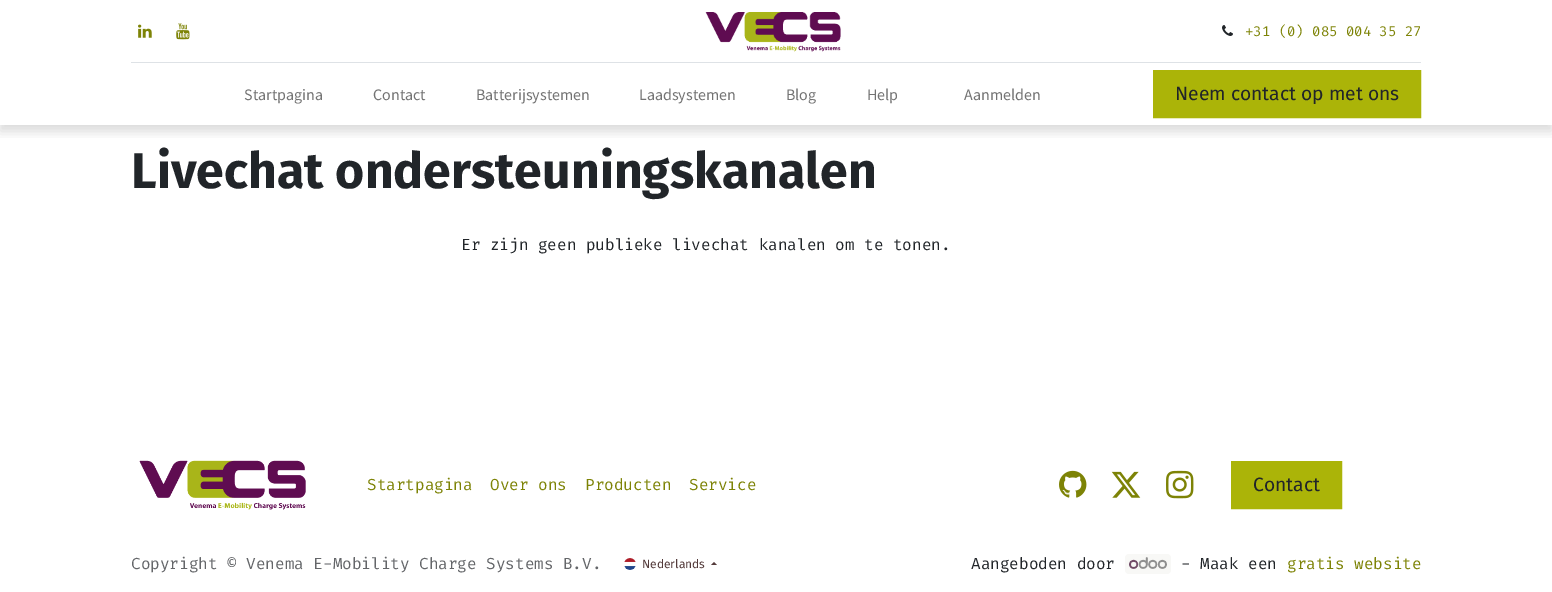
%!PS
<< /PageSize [1552 592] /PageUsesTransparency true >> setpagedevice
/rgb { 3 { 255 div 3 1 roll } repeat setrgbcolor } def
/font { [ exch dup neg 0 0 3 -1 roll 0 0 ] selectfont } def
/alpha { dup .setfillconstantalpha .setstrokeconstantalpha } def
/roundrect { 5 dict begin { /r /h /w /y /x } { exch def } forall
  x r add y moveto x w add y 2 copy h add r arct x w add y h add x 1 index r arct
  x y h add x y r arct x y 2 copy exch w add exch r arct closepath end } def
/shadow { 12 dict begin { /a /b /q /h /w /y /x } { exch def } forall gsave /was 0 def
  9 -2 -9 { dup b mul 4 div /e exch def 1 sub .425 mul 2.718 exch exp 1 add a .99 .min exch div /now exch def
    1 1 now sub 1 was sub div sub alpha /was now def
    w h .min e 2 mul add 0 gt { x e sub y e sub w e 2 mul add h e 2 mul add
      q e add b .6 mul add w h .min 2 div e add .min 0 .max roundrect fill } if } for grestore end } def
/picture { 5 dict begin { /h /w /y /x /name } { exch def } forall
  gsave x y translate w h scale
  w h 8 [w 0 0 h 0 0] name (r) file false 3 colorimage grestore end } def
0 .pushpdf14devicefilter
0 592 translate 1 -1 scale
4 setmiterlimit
255 255 255 rgb
0 0 1552 592 rectfill
gsave
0 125 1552 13 rectclip
0 0 0 rgb
0 6 1552 125 0 6 0.15 shadow
grestore
(img/1.rgb) 138 24 14 14 picture
(img/2.rgb) 176 23 14 17 picture
(img/3.rgb) 705 12 136 40 picture
(img/4.rgb) 1222 25 11 11 picture
222 226 230 rgb
131 62 1290 1 rectfill
171 180 8 rgb
1154 71 moveto 1420 71 lineto 1420 117 lineto 1154 117 lineto closepath gsave fill grestore
2 setlinewidth
stroke
(img/5.rgb) 139 460 167 50 picture
(img/6.rgb) 1059 470 28 28 picture
(img/7.rgb) 1111 471 30 27 picture
(img/8.rgb) 1166 470 28 29 picture
1232 462 moveto 1341 462 lineto 1341 508 lineto 1232 508 lineto closepath gsave fill grestore
stroke
(img/9.rgb) 624 558 12 12 picture
84 59 59 rgb
717 565 moveto 711 565 lineto 714 562 lineto closepath fill
248 248 246 rgb
1125 554 46 20 4 roundrect fill
(img/10.rgb) 1129 557 38 12 picture
/FiraCode-Regular 14 font
125 131 6 rgb
1245 36 moveto (+31 \(0\) 085 004 35 27) show
/SourceSansPro-Regular 16 font
115 115 115 rgb
[
  [(Startpagina) 244 100]
  [(Contact) 373 100]
  [(Batterijsystemen) 476 100]
  [(Laadsystemen) 639 100]
  [(Blog) 786 100]
  [(Help) 867 100]
  [(Aanmelden) 964 100]
] { aload pop moveto show } forall
/FiraSans-Regular 19.25 font
33 37 41 rgb
1175 100 moveto (Neem contact op met ons) show
/FiraSans-Bold 50 font
131 188 moveto (Livechat ondersteuningskanalen) show
/FiraCode-Regular 16 font
461 250 moveto (Er zijn geen publieke livechat kanalen om te tonen.) show
125 131 6 rgb
[
  [(Startpagina) 367 490]
  [(Over ons) 490 490]
  [(Producten) 585 490]
  [(Service) 689 490]
] { aload pop moveto show } forall
/FiraSans-Regular 19.25 font
33 37 41 rgb
1253 491 moveto (Contact) show
/FiraCode-Regular 16 font
100 102 105 rgb
131 569 moveto (Copyright © Venema E-Mobility Charge Systems B.V.) show
/FiraSans-Regular 12 font
84 59 59 rgb
642 568 moveto (Nederlands) show
/FiraCode-Regular 16 font
33 37 41 rgb
971 569 moveto (Aangeboden door) show
1181 569 moveto (- Maak een) show
125 131 6 rgb
1287 569 moveto (gratis website) show
.poppdf14devicefilter showpage
